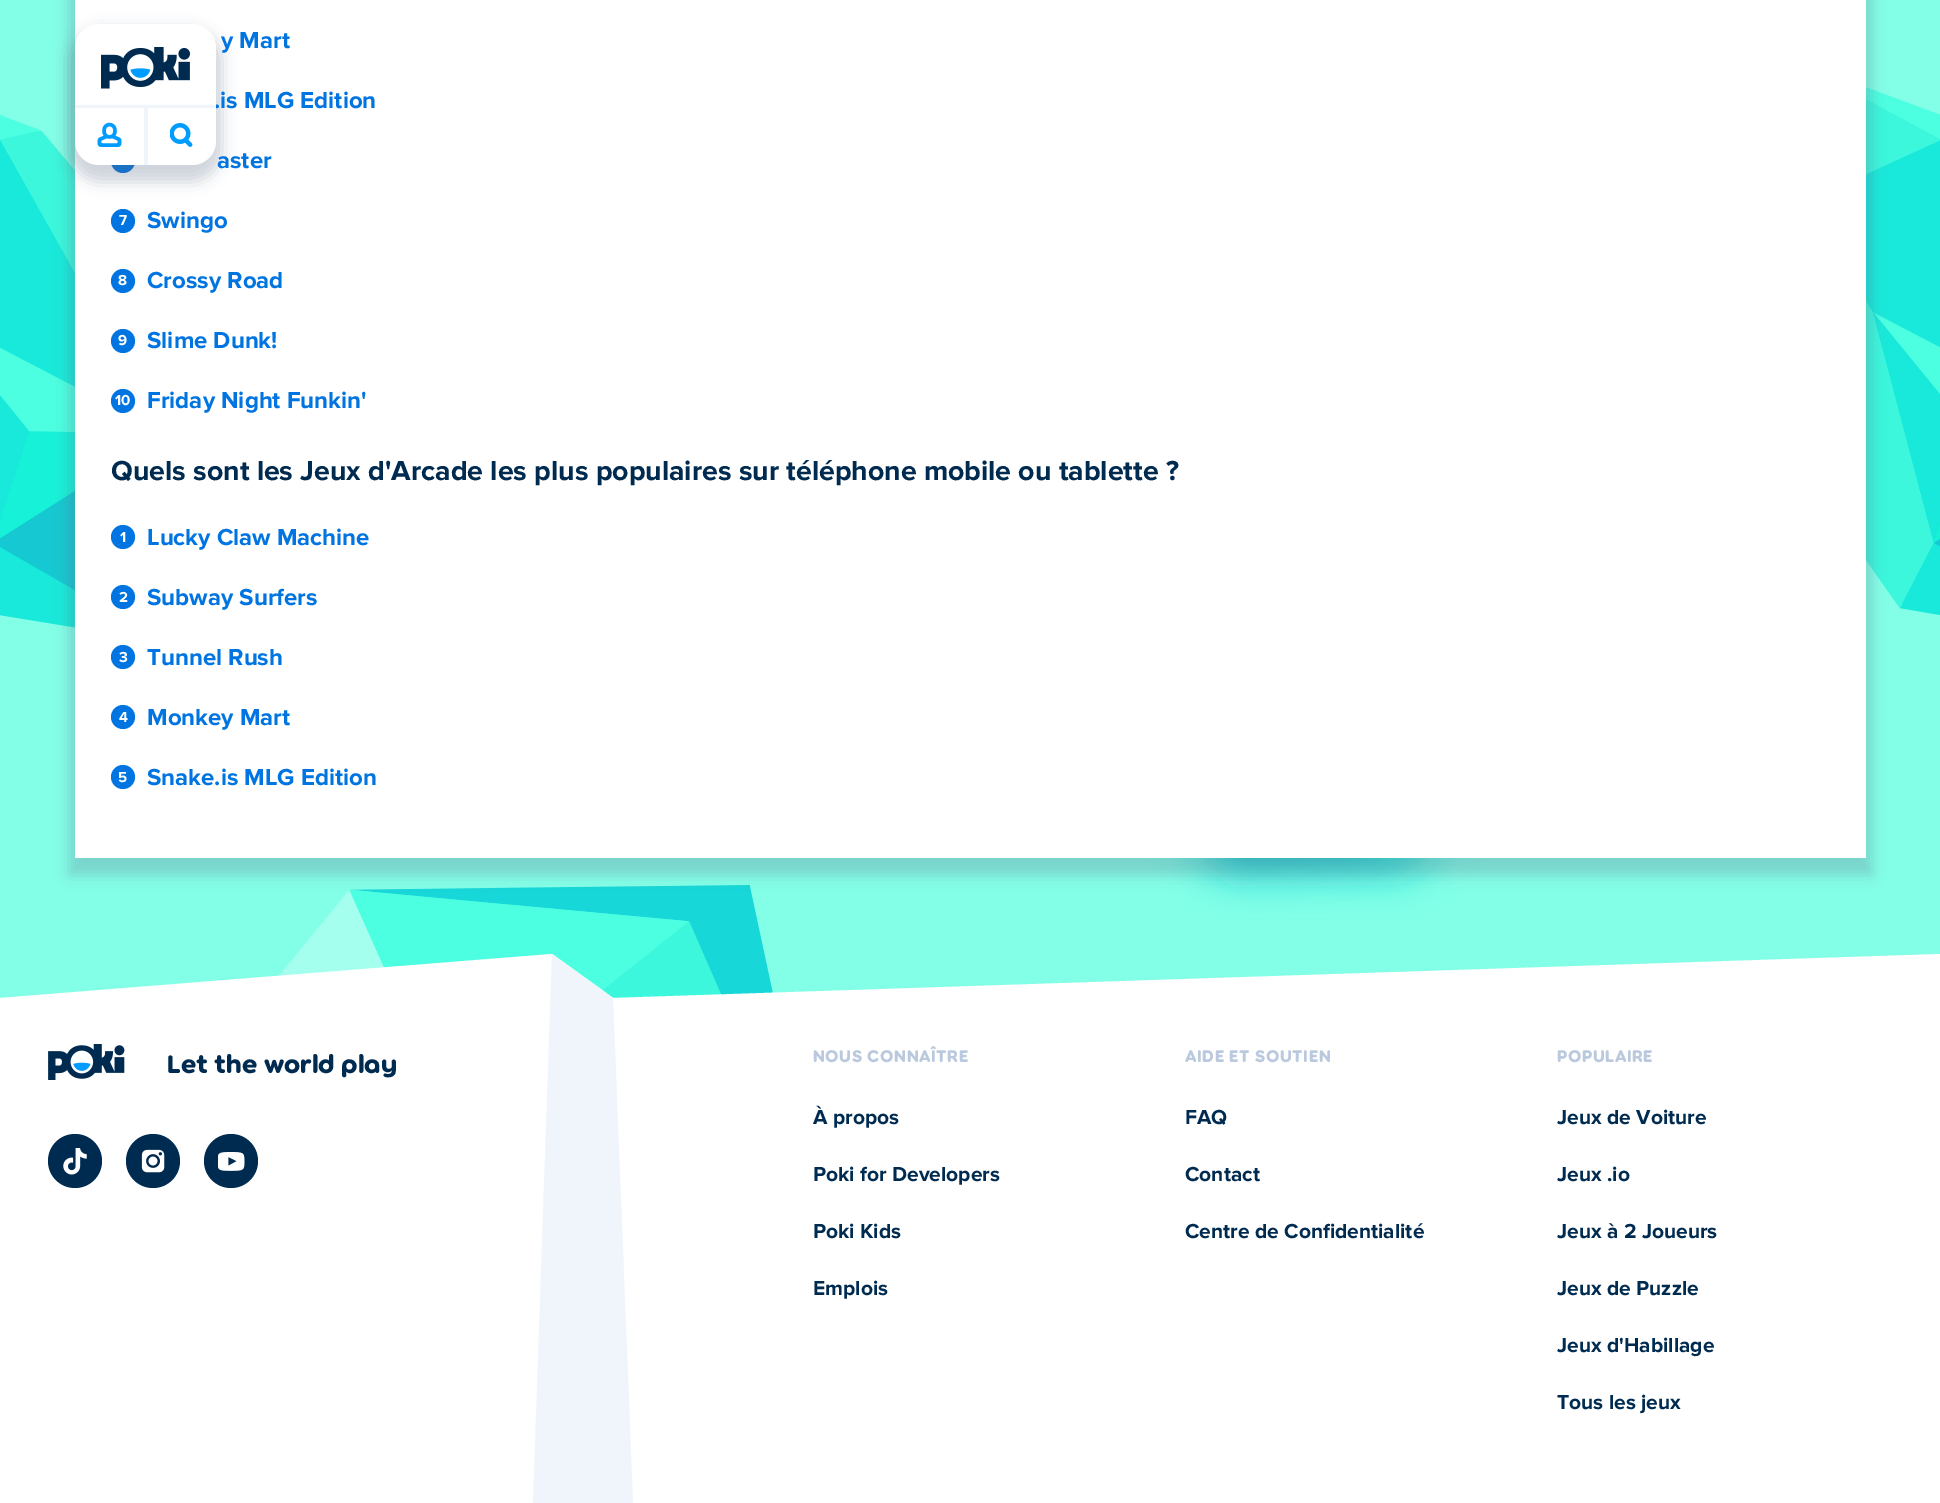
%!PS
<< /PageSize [1940 1503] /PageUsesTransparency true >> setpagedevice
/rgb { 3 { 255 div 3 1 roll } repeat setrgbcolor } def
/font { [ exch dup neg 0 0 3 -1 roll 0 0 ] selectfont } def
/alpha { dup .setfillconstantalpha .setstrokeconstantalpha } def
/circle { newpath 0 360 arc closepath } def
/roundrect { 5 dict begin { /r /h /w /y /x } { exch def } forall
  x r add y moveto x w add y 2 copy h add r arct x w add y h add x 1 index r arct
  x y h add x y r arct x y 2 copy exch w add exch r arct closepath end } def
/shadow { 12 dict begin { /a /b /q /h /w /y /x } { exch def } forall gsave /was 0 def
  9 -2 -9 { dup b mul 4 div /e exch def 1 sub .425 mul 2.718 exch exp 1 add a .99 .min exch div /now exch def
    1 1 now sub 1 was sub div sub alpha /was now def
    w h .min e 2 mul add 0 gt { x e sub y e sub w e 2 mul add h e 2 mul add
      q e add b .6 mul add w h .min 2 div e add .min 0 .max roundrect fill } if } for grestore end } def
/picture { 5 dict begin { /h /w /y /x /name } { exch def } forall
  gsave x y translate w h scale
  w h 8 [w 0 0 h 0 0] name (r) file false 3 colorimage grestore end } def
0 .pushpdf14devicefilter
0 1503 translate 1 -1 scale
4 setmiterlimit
131 255 231 rgb
0 0 1940 1503 rectfill
(img/1.rgb) 0 87 1940 911 picture
93 107 132 rgb
69 -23 1803 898 0 7.5 0.3 shadow
255 255 255 rgb
75 0 1791 858 rectfill
0 116 224 rgb
123 161 12 circle fill
93 107 132 rgb
69 29 153 153 30 7.5 0.3 shadow
0 116 224 rgb
123 221 12 circle fill
123 281 12 circle fill
123 341 12 circle fill
123 401 12 circle fill
123 537 12 circle fill
123 597 12 circle fill
123 657 12 circle fill
123 717 12 circle fill
123 777 12 circle fill
255 255 255 rgb
552 954 moveto 0 998 lineto 0 1503 lineto 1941 1503 lineto 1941 954 lineto 613 998 lineto closepath fill
240 245 252 rgb
552 954 moveto 533 1503 lineto 633 1503 lineto 613 998 lineto closepath fill
(img/5.rgb) 48 1044 77 36 picture
0 43 80 rgb
75 1161 27 circle fill
(img/6.rgb) 63 1148 24 27 picture
153 1161 27 circle fill
(img/7.rgb) 141 1149 24 24 picture
231 1161 27 circle fill
(img/8.rgb) 218 1152 27 19 picture
/ProximaNova-Bold 24 font
0 116 224 rgb
221 48 moveto (y Mart) show
214 108 moveto (.is MLG Edition) show
255 255 255 rgb
75 24 141 141 24 roundrect fill
(img/3.rgb) 97 122 25 25 picture
(img/4.rgb) 170 123 23 24 picture
(img/2.rgb) 101 47 89 42 picture
240 245 252 rgb
144 108 4 57 rectfill
75 105 141 3 rectfill
0 116 224 rgb
217 168 moveto (aster) show
/ProximaNova-Bold 15 font
255 255 255 rgb
119 225 moveto (7) show
/ProximaNova-Bold 24 font
0 116 224 rgb
147 228 moveto (Swingo) show
/ProximaNova-Bold 15 font
255 255 255 rgb
118 285 moveto (8) show
/ProximaNova-Bold 24 font
0 116 224 rgb
147 288 moveto (Crossy Road) show
/ProximaNova-Bold 15 font
255 255 255 rgb
118 345 moveto (9) show
/ProximaNova-Bold 24 font
0 116 224 rgb
147 348 moveto (Slime Dunk!) show
/ProximaNova-Bold 15 font
255 255 255 rgb
115 405 moveto (10) show
/ProximaNova-Bold 24 font
0 116 224 rgb
147 408 moveto (Friday Night Funkin') show
/ProximaNova-Bold 28.5 font
0 43 80 rgb
111 480 moveto (Quels sont les Jeux d'Arcade les plus populaires sur téléphone mobile ou tablette ?) show
/ProximaNova-Bold 15 font
255 255 255 rgb
120 542 moveto (1) show
/ProximaNova-Bold 24 font
0 116 224 rgb
147 545 moveto (Lucky Claw Machine) show
/ProximaNova-Bold 15 font
255 255 255 rgb
119 602 moveto (2) show
/ProximaNova-Bold 24 font
0 116 224 rgb
147 605 moveto (Subway Surfers) show
/ProximaNova-Bold 15 font
255 255 255 rgb
119 662 moveto (3) show
/ProximaNova-Bold 24 font
0 116 224 rgb
147 665 moveto (Tunnel Rush) show
/ProximaNova-Bold 15 font
255 255 255 rgb
119 722 moveto (4) show
/ProximaNova-Bold 24 font
0 116 224 rgb
147 725 moveto (Monkey Mart) show
/ProximaNova-Bold 15 font
255 255 255 rgb
118 782 moveto (5) show
/ProximaNova-Bold 24 font
0 116 224 rgb
147 785 moveto (Snake.is MLG Edition) show
/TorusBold-Bold 27 font
0 43 80 rgb
167 1073 moveto (Let the world play) show
/TorusBold-Bold 18 font
186 201 222 rgb
813 1062 moveto 0.5 0 (NOUS CONNAÎTRE) ashow
/ProximaNova-Bold 21 font
0 43 80 rgb
[
  [(À propos) 813 1124]
  [(Poki for Developers) 813 1181]
  [(Poki Kids) 813 1238]
  [(Emplois) 813 1295]
] { aload pop moveto show } forall
/TorusBold-Bold 18 font
186 201 222 rgb
1185 1062 moveto 0.5 0 (AIDE ET SOUTIEN) ashow
/ProximaNova-Bold 21 font
0 43 80 rgb
[
  [(FAQ) 1185 1124]
  [(Contact) 1185 1181]
  [(Centre de Confidentialité) 1185 1238]
] { aload pop moveto show } forall
/TorusBold-Bold 18 font
186 201 222 rgb
1557 1062 moveto 0.5 0 (POPULAIRE) ashow
/ProximaNova-Bold 21 font
0 43 80 rgb
[
  [(Jeux de Voiture) 1557 1124]
  [(Jeux .io) 1557 1181]
  [(Jeux à 2 Joueurs) 1557 1238]
  [(Jeux de Puzzle) 1557 1295]
  [(Jeux d'Habillage) 1557 1352]
  [(Tous les jeux) 1557 1409]
] { aload pop moveto show } forall
.poppdf14devicefilter showpage
